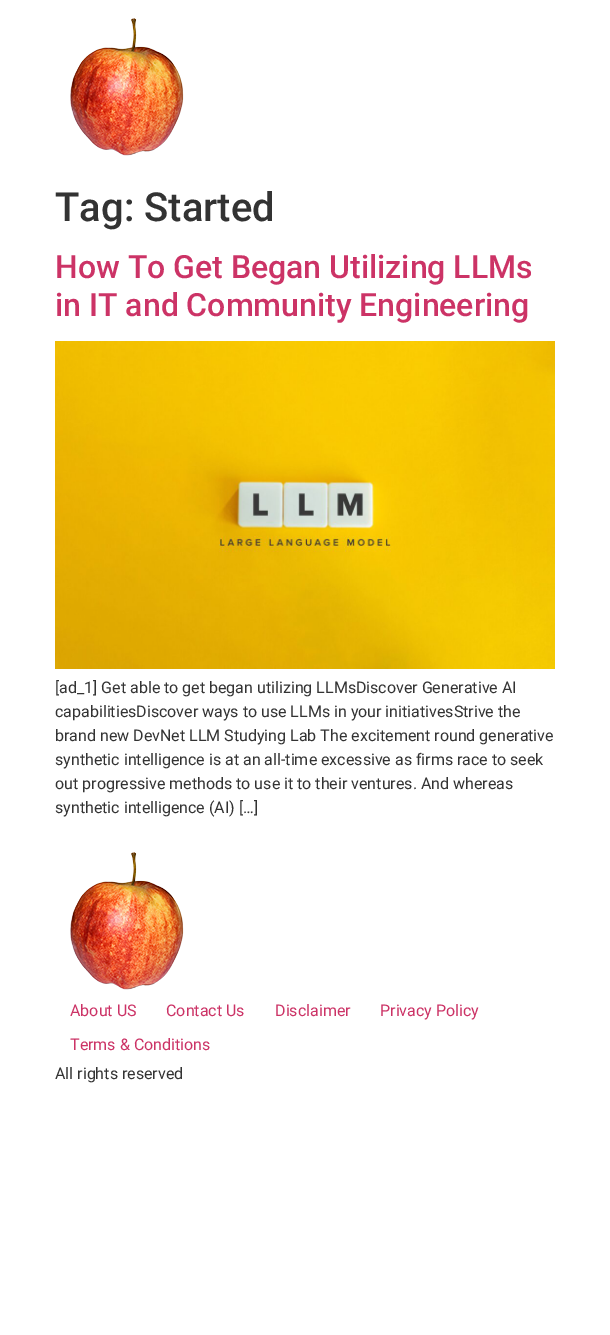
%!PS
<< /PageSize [610 1335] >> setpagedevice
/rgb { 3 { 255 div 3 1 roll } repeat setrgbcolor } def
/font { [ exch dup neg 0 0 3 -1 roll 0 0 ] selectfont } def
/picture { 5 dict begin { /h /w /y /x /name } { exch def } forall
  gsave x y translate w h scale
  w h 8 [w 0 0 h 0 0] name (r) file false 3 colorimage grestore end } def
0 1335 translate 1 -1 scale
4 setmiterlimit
255 255 255 rgb
0 0 610 1335 rectfill
(img/1.rgb) 70 18 114 138 picture
(img/2.rgb) 55 341 500 328 picture
(img/1.rgb) 70 852 114 138 picture
/Roboto-Medium 40 font
51 51 51 rgb
55 221 moveto (Tag: Started) show
/Roboto-Medium 32 font
204 51 102 rgb
55 278 moveto (How To Get Began Utilizing LLMs) show
55 316 moveto (in IT and Community Engineering) show
/Roboto-Regular 16 font
51 51 51 rgb
[
  [([ad_1] Get able to get began utilizing LLMsDiscover Generative AI) 55 693]
  [(capabilitiesDiscover ways to use LLMs in your initiativesStrive the) 55 717]
  [(brand new DevNet LLM Studying Lab The excitement round generative) 55 741]
  [(synthetic intelligence is at an all-time excessive as firms race to seek) 55 765]
  [(out progressive methods to use it to their ventures. And whereas) 55 789]
  [(synthetic intelligence \(AI\) […]) 55 813]
] { aload pop moveto show } forall
204 51 102 rgb
[
  [(About US) 70 1016]
  [(Contact Us) 166 1016]
  [(Disclaimer) 275 1016]
  [(Privacy Policy) 380 1016]
  [(Terms & Conditions) 70 1050]
] { aload pop moveto show } forall
51 51 51 rgb
55 1079 moveto (All rights reserved) show
showpage
